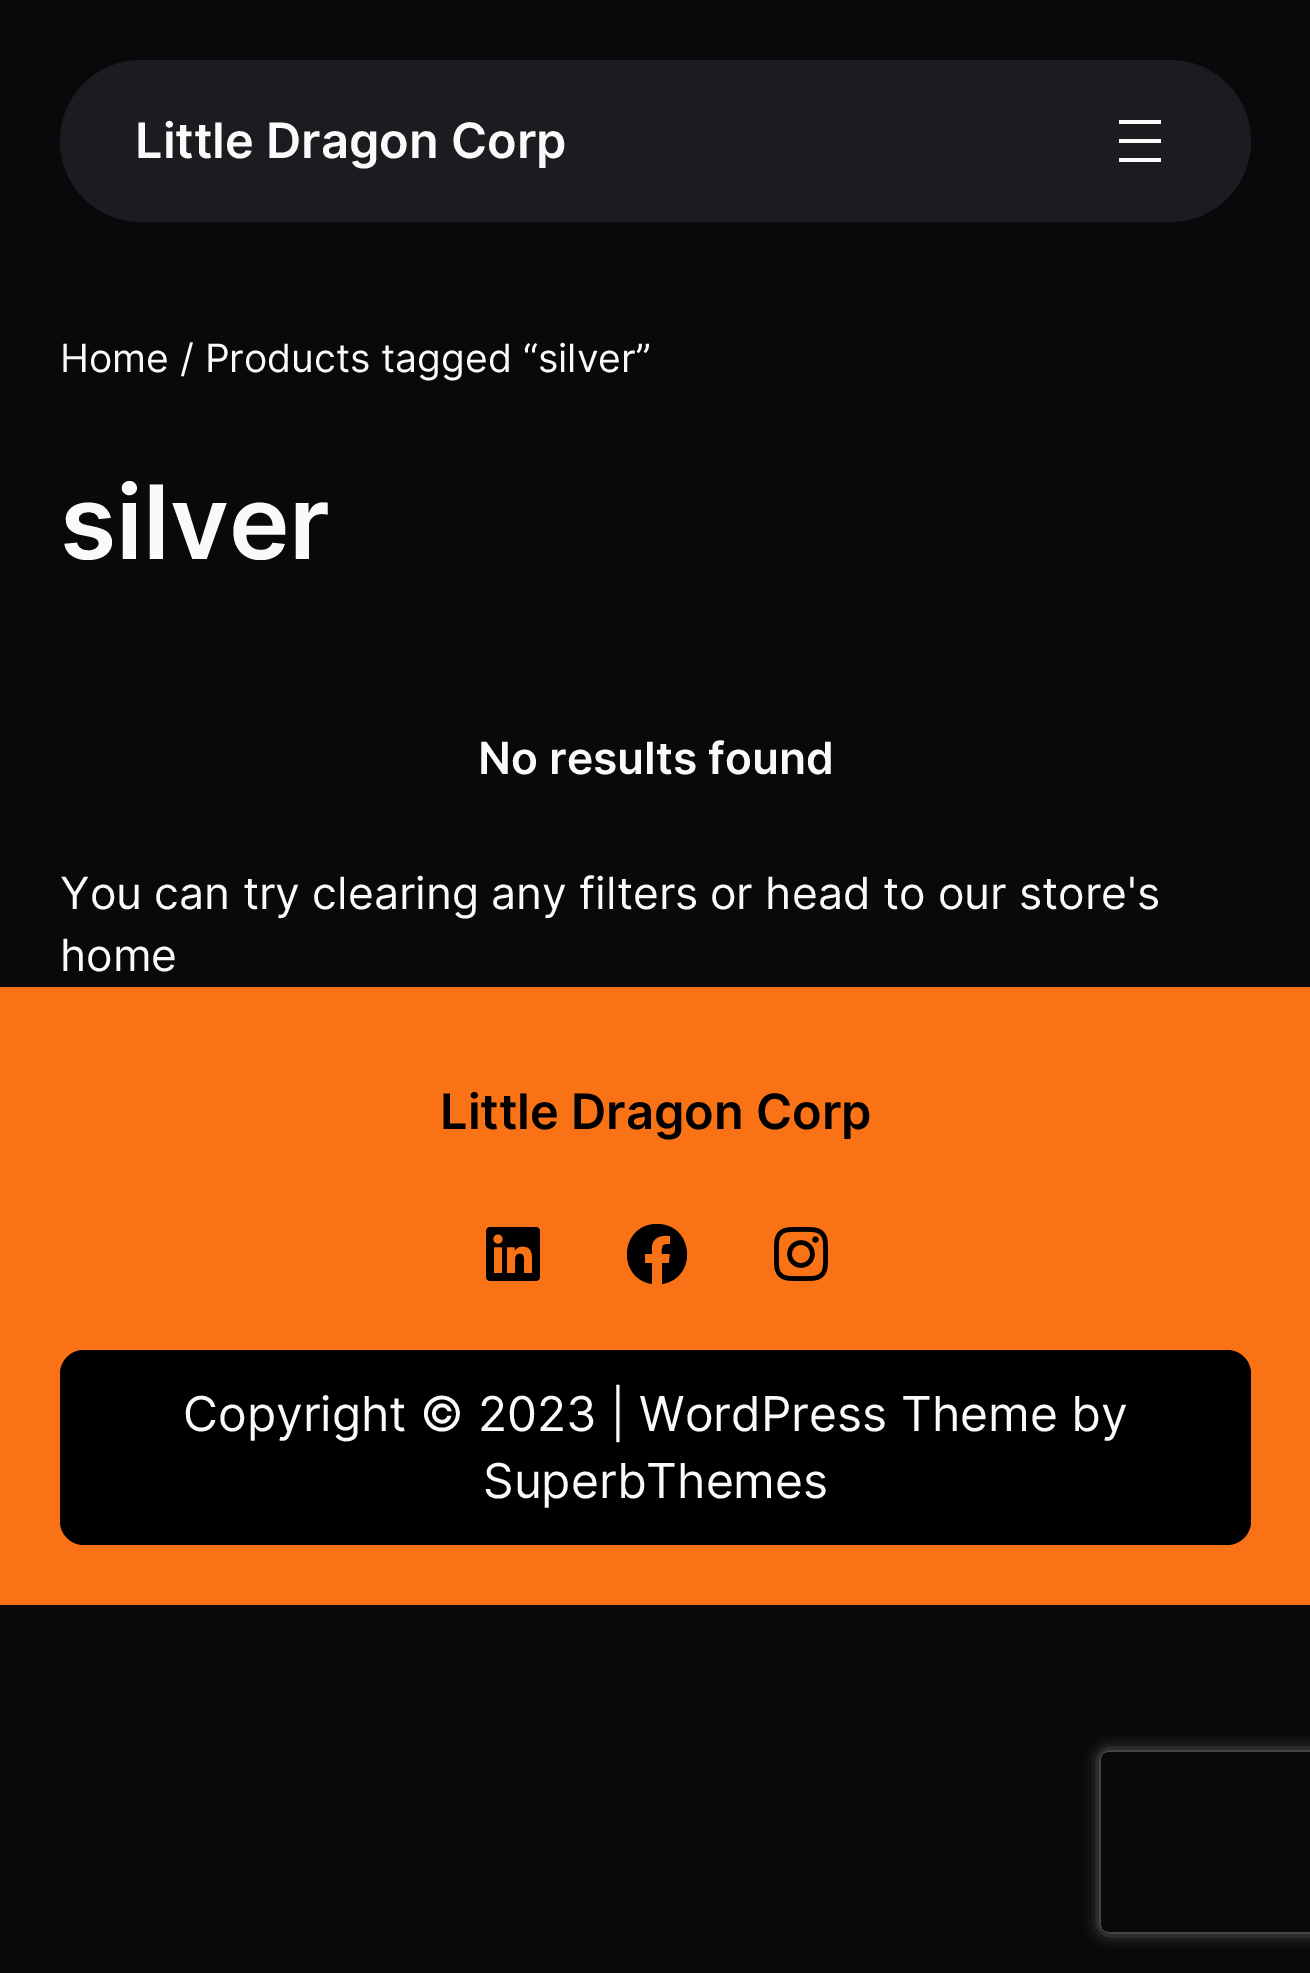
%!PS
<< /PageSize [1310 1973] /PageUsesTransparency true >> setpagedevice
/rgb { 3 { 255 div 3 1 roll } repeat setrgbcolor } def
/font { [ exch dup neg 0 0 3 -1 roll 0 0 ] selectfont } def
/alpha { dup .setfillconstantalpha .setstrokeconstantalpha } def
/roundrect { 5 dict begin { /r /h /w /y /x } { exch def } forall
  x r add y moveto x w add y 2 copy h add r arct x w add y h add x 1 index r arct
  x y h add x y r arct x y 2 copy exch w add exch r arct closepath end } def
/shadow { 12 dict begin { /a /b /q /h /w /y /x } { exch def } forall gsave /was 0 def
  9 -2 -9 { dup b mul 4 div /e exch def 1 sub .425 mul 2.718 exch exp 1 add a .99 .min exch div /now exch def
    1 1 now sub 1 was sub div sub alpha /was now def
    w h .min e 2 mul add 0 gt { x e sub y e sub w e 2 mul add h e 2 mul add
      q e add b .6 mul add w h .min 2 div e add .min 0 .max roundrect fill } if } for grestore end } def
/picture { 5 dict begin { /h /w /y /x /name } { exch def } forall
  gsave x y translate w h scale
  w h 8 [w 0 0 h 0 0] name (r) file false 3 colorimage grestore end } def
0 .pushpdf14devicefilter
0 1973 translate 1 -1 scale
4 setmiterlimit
9 9 11 rgb
0 0 1310 1973 rectfill
28 28 32 rgb
60 60 1191 162 81 roundrect fill
250 250 250 rgb
1119 120 moveto 1119 124 lineto 1161 124 lineto 1161 120 lineto closepath 1119 143 moveto 1161 143 lineto 1161 139 lineto 1119 139 lineto closepath 1119 162 moveto 1161 162 lineto 1161 158 lineto 1119 158 lineto closepath fill
249 115 22 rgb
0 987 1310 618 rectfill
(img/1.rgb) 486 1227 54 54 picture
0 0 0 rgb
657 1224 moveto 620 1224 616 1278 652 1284 curveto 652 1263 lineto 645 1263 lineto 645 1254 lineto 652 1254 lineto 652 1245 lineto 654 1236 663 1235 670 1236 curveto 670 1244 lineto 661 1244 662 1246 662 1254 curveto 670 1254 lineto 669 1263 lineto 662 1263 lineto 662 1284 lineto 698 1278 694 1224 657 1224 curveto closepath fill
(img/2.rgb) 774 1227 54 54 picture
60 1350 1191 195 24 roundrect fill
gsave
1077 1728 moveto 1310 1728 lineto 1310 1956 lineto 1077 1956 lineto closepath 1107 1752 moveto 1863 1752 lineto 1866.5 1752 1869 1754.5 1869 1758 curveto 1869 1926 lineto 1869 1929.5 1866.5 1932 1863 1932 curveto 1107 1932 lineto 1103.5 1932 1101 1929.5 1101 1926 curveto 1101 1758 lineto 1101 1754.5 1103.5 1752 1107 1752 curveto closepath eoclip newpath
128 128 128 rgb
1101 1752 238 180 6 7.5 1 shadow
grestore
/Inter-SemiBold 48.75 font
250 250 250 rgb
135 158 moveto (Little Dragon Corp) show
/Inter-Regular 39 font
60 372 moveto (Home / Products tagged “silver”) show
/Inter-SemiBold 102.5 font
60 559 moveto (silver) show
/Inter-SemiBold 44.4 font
478 774 moveto (No results found) show
/Inter-Regular 44.4 font
[
  [(You can try clearing any filters) 60 909]
  [(or head to our) 710 909]
  [(store's) 1019 909]
  [(home) 60 971]
] { aload pop moveto show } forall
/Inter-SemiBold 48.75 font
0 0 0 rgb
440 1129 moveto (Little Dragon Corp) show
/Inter-Regular 48 font
250 250 250 rgb
183 1431 moveto (Copyright © 2023 | WordPress Theme by) show
483 1498 moveto (SuperbThemes) show
.poppdf14devicefilter showpage
